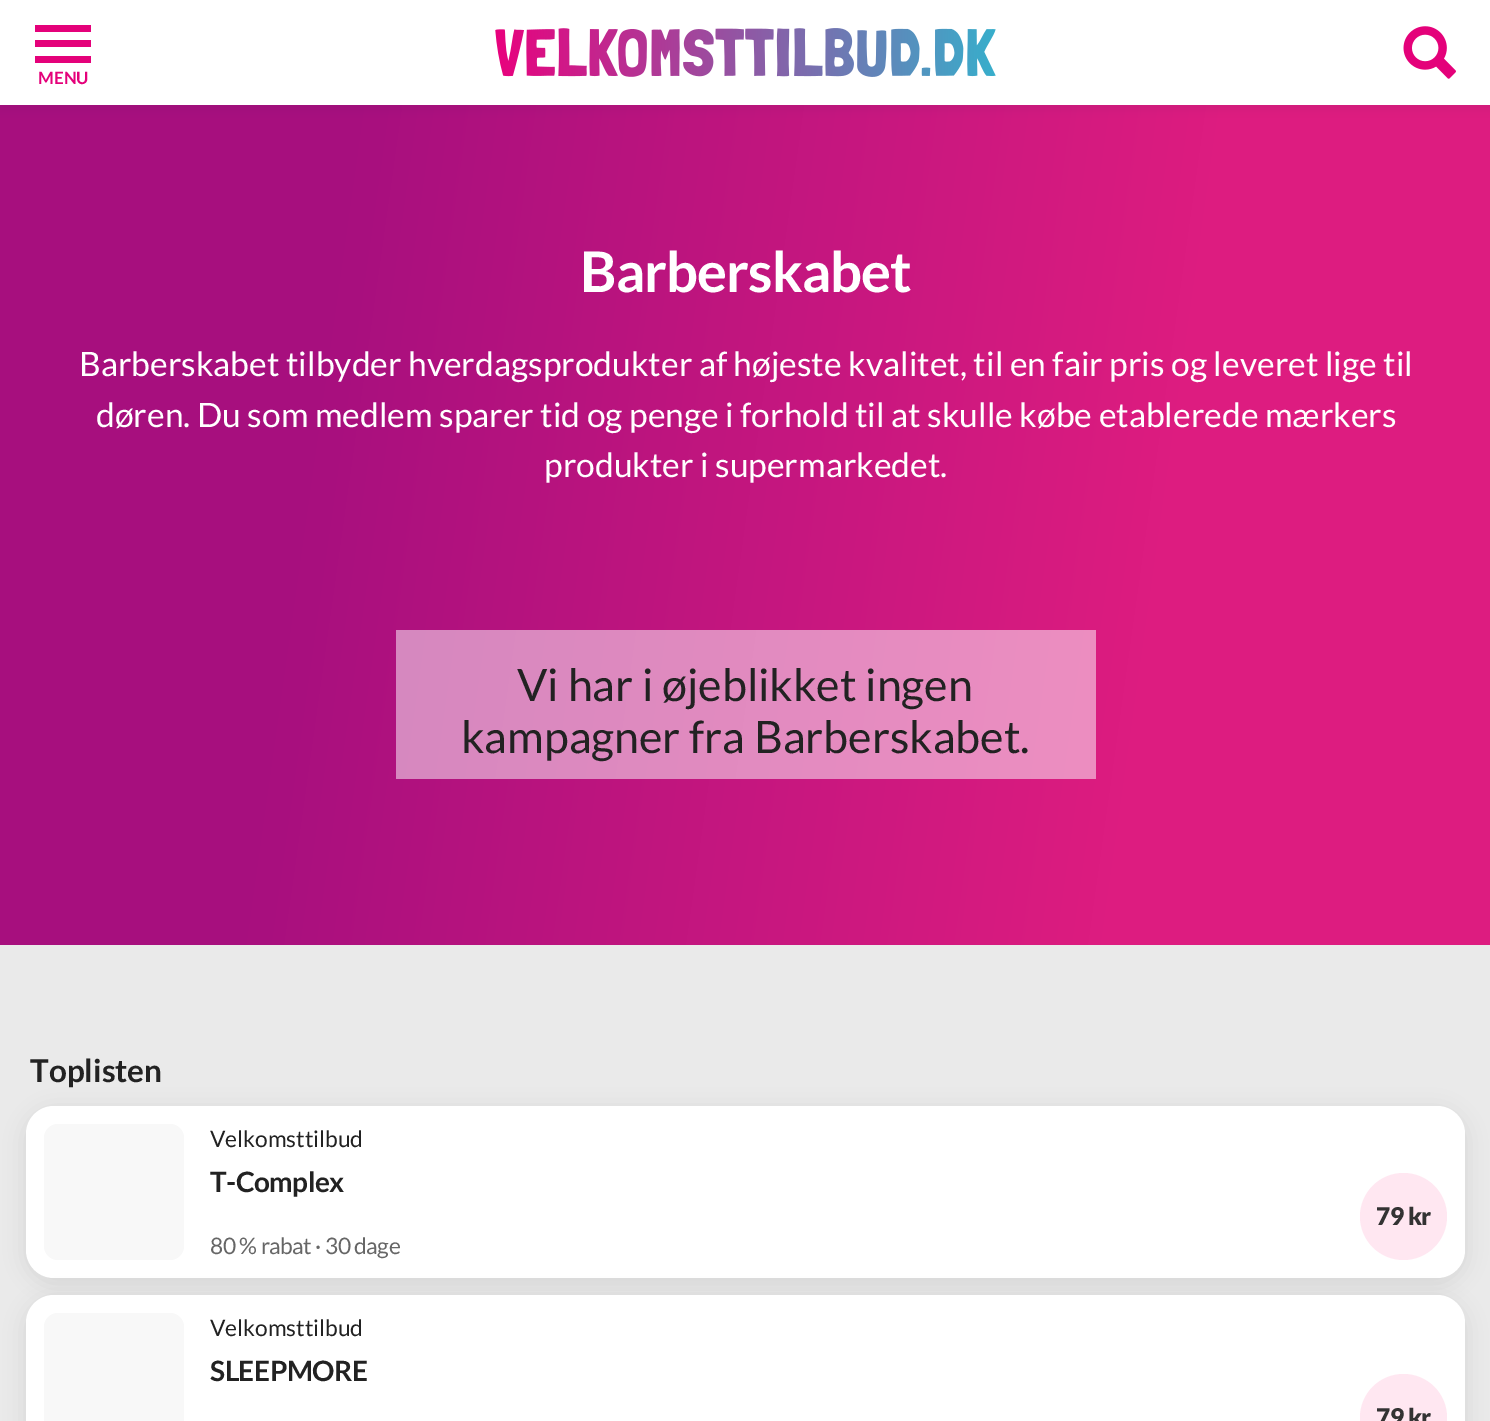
%!PS
<< /PageSize [1490 1421] /PageUsesTransparency true >> setpagedevice
/rgb { 3 { 255 div 3 1 roll } repeat setrgbcolor } def
/font { [ exch dup neg 0 0 3 -1 roll 0 0 ] selectfont } def
/alpha { dup .setfillconstantalpha .setstrokeconstantalpha } def
/circle { newpath 0 360 arc closepath } def
/roundrect { 5 dict begin { /r /h /w /y /x } { exch def } forall
  x r add y moveto x w add y 2 copy h add r arct x w add y h add x 1 index r arct
  x y h add x y r arct x y 2 copy exch w add exch r arct closepath end } def
/shadow { 12 dict begin { /a /b /q /h /w /y /x } { exch def } forall gsave /was 0 def
  9 -2 -9 { dup b mul 4 div /e exch def 1 sub .425 mul 2.718 exch exp 1 add a .99 .min exch div /now exch def
    1 1 now sub 1 was sub div sub alpha /was now def
    w h .min e 2 mul add 0 gt { x e sub y e sub w e 2 mul add h e 2 mul add
      q e add b .6 mul add w h .min 2 div e add .min 0 .max roundrect fill } if } for grestore end } def
/picture { 5 dict begin { /h /w /y /x /name } { exch def } forall
  gsave x y translate w h scale
  w h 8 [w 0 0 h 0 0] name (r) file false 3 colorimage grestore end } def
0 .pushpdf14devicefilter
0 1421 translate 1 -1 scale
4 setmiterlimit
234 234 234 rgb
0 0 1490 1421 rectfill
gsave 0 105 moveto 1490 105 lineto 1490 945 lineto 0 945 lineto closepath clip newpath
<< /ShadingType 2 /ColorSpace /DeviceRGB /Coords [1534 636 -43 414] /Extend [true true] /Function << /FunctionType 3 /Domain [0 1] /Functions [<< /FunctionType 2 /Domain [0 1] /C0 [0.867 0.11 0.502] /C1 [0.867 0.11 0.502] /N 1 >> << /FunctionType 2 /Domain [0 1] /C0 [0.867 0.11 0.502] /C1 [0.655 0.059 0.494] /N 1 >> << /FunctionType 2 /Domain [0 1] /C0 [0.655 0.059 0.494] /C1 [0.655 0.059 0.494] /N 1 >>] /Bounds [0.24 0.78] /Encode [0 1 0 1 0 1] >> >> shfill grestore
0 0 0 rgb
0 4 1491 105 0 5 0.05 shadow
[
  [0 0 1490 105 255 255 255]
  [35 25 56 7 228 1 122]
  [35 40 56 7 228 1 122]
  [35 56 56 7 228 1 122]
] { aload pop rgb rectfill } forall
(img/1.rgb) 495 28 501 49 picture
(img/2.rgb) 1403 26 53 53 picture
gsave 396 630 moveto 1096 630 lineto 1096 779 lineto 396 779 lineto closepath clip newpath
<< /ShadingType 2 /ColorSpace /DeviceRGB /Coords [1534 636 -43 414] /Extend [true true] /Function << /FunctionType 3 /Domain [0 1] /Functions [<< /FunctionType 2 /Domain [0 1] /C0 [0.933 0.557 0.753] /C1 [0.933 0.557 0.753] /N 1 >> << /FunctionType 2 /Domain [0 1] /C0 [0.933 0.557 0.753] /C1 [0.827 0.529 0.749] /N 1 >> << /FunctionType 2 /Domain [0 1] /C0 [0.827 0.529 0.749] /C1 [0.827 0.529 0.749] /N 1 >>] /Bounds [0.24 0.78] /Encode [0 1 0 1 0 1] >> >> shfill grestore
0 0 0 rgb
26 1111 1439 172 28 10.5 0.08 shadow
255 255 255 rgb
26 1106 1439 172 28 roundrect fill
248 248 248 rgb
44 1124 140 136 14 roundrect fill
255 231 241 rgb
1403.5 1216.5 43.5 circle fill
0 0 0 rgb
26 1300 1439 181 28 10.5 0.08 shadow
255 255 255 rgb
26 1295 1439 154 28 roundrect fill
248 248 248 rgb
44 1313 140 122 14 roundrect fill
255 231 241 rgb
1403.5 1417.5 43.5 circle fill
/Lato-Bold 17 font
228 1 122 rgb
38 84 moveto (MENU) show
/Lato-Bold 56 font
255 255 255 rgb
580 292 moveto -0.9 0 (Barberskabet) ashow
/Lato-Regular 33.6 font
[
  [(Barberskabet tilbyder hverdagsprodukter af højeste kvalitet, til en fair pris og leveret lige til) 79 376]
  [(døren. Du som medlem sparer tid og penge i forhold til at skulle købe etablerede mærkers) 96 427]
  [(produkter i supermarkedet.) 544 477]
] { aload pop moveto show } forall
/Lato-Regular 44.75 font
34 34 34 rgb
517 701 moveto (Vi har i øjeblikket ingen) show
461 753 moveto (kampagner fra Barberskabet.) show
/Lato-Bold 31.5 font
30 1082 moveto (Toplisten) show
/Lato-Regular 22.75 font
210 1147 moveto (Velkomsttilbud) show
/Lato-Bold 28 font
210 1192 moveto -0.5 0 (T-Complex) ashow
/Lato-Black 24.5 font
51 51 51 rgb
1376 1225 moveto -0.5 0 (79 kr) ashow
/Lato-Regular 22.75 font
102 102 102 rgb
210 1254 moveto -0.5 0 (80 % rabat · 30 dage) ashow
34 34 34 rgb
210 1336 moveto (Velkomsttilbud) show
/Lato-Bold 28 font
210 1381 moveto -0.5 0 (SLEEPMORE) ashow
/Lato-Black 24.5 font
51 51 51 rgb
1376 1426 moveto -0.5 0 (79 kr) ashow
.poppdf14devicefilter showpage
